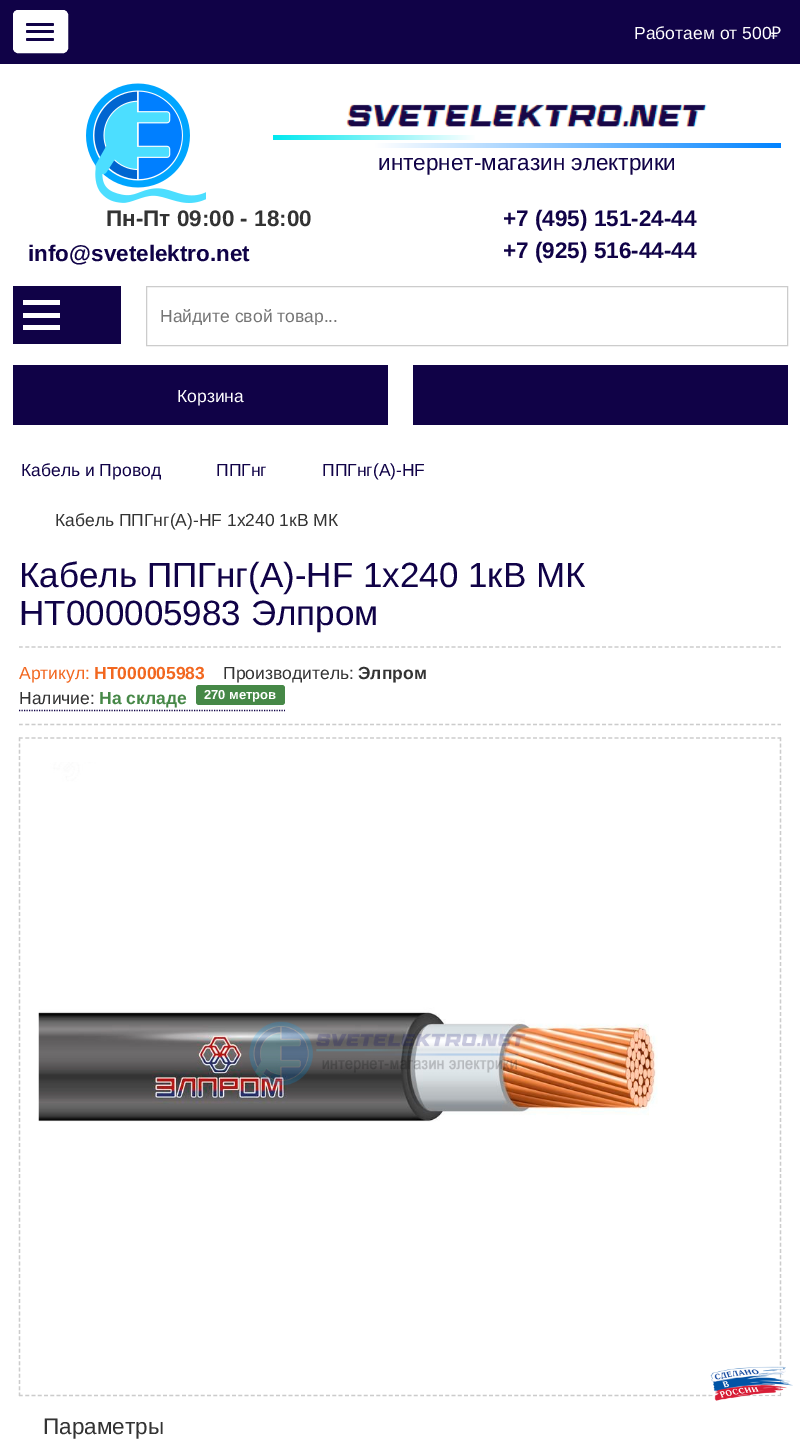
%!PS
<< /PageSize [800 1456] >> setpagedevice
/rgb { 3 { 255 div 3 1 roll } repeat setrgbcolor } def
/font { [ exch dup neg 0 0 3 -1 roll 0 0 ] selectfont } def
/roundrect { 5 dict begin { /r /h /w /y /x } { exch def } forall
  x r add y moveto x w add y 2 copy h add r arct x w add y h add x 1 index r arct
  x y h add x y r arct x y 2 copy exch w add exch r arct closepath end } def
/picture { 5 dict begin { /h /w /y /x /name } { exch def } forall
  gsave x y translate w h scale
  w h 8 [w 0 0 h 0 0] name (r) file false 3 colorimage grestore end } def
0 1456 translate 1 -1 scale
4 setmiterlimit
255 255 255 rgb
0 0 800 1456 rectfill
16 2 71 rgb
0 0 800 64 rectfill
255 255 255 rgb
13.5 10.5 54 42 4.5 roundrect gsave fill grestore
stroke
16 2 71 rgb
26 23 28 3 1.5 roundrect fill
26 30 28 3 1.5 roundrect fill
26 38 28 3 1.5 roundrect fill
(img/1.rgb) 86 83 120 120 picture
(img/2.rgb) 346 104 361 23 picture
gsave 273 135 moveto 476 135 lineto 476 140 lineto 273 140 lineto closepath clip newpath
<< /ShadingType 2 /ColorSpace /DeviceRGB /Coords [273 138 476 138] /Extend [true true] /Function << /FunctionType 2 /Domain [0 1] /C0 [0 0.91 0.937] /C1 [1 1 1] /N 1 >> >> shfill grestore
gsave 375 143 moveto 781 143 lineto 781 148 lineto 375 148 lineto closepath clip newpath
<< /ShadingType 2 /ColorSpace /DeviceRGB /Coords [781 145 375 145] /Extend [true true] /Function << /FunctionType 2 /Domain [0 1] /C0 [0 0.514 1] /C1 [1 1 1] /N 1 >> >> shfill grestore
[
  [13 286 108 58 16 2 71]
  [23 313 37 5 255 255 255]
  [23 300 37 5 255 255 255]
  [23 325 37 5 255 255 255]
] { aload pop rgb rectfill } forall
204 204 204 rgb
146.5 286.5 641 59 rectstroke
16 2 71 rgb
13 365 375 60 rectfill
413 365 375 60 rectfill
204 204 204 rgb
1.2 setlinewidth
[3.75 2.52] 0 setdash
19 647 moveto 781 647 lineto stroke
19 724.5 moveto 781 724.5 lineto stroke
16 2 71 rgb
[1.25 1.25] 0 setdash
19 710.5 moveto 285 710.5 lineto stroke
70 136 71 rgb
196 685 89 20 3 roundrect fill
204 204 204 rgb
[3.75 2.52] 0 setdash
19 738 moveto 781 738 lineto stroke
[3.75 2.49] 0 setdash
780.5 737.5 moveto 780.5 1396 lineto stroke
[3.75 2.52] 0 setdash
19 1395.5 moveto 781 1395.5 lineto stroke
[3.75 2.49] 0 setdash
19.5 737.5 moveto 19.5 1396 lineto stroke
(img/3.rgb) 38 762 620 360 picture
(img/4.rgb) 710 1366 83 35 picture
/LiberationSans-Regular 17.5 font
255 255 255 rgb
634 39 moveto (Работаем от 500) show
/NotoSans-Regular 17.5 font
771 39 moveto (₽) show
/LiberationSans-Regular 22.5 font
16 2 71 rgb
378 170 moveto (интернет-магазин электрики) show
/LiberationSans-Bold 22.5 font
51 51 51 rgb
106 226 moveto (Пн-Пт 09:00 - 18:00) show
16 2 71 rgb
[
  [(+7 \(495\) 151-24-44) 503 226]
  [(+7 \(925\) 516-44-44) 503 258]
  [(info@svetelektro.net) 28 261]
] { aload pop moveto show } forall
gsave
160 305 556 20 rectclip
/LiberationSans-Regular 17.5 font
117 117 117 rgb
160 322 moveto (Найдите свой товар...) show
grestore
/LiberationSans-Regular 17.5 font
255 255 255 rgb
177 402 moveto (Корзина) show
16 2 71 rgb
[
  [(Кабель и Провод) 21 476]
  [(ППГнг) 216 476]
  [(ППГнг\(А\)-HF) 322 476]
] { aload pop moveto show } forall
51 51 51 rgb
55 526 moveto (Кабель ППГнг\(А\)-HF 1х240 1кВ МК) show
/LiberationSans-Regular 35 font
16 2 71 rgb
19 587 moveto (Кабель ППГнг\(А\)-HF 1х240 1кВ МК) show
19 625 moveto (НТ000005983 Элпром) show
/LiberationSans-Regular 17.5 font
242 103 31 rgb
19 679 moveto (Артикул:) show
/LiberationSans-Bold 17.5 font
94 679 moveto (НТ000005983) show
/LiberationSans-Regular 17.5 font
51 51 51 rgb
223 679 moveto (Производитель:) show
/LiberationSans-Bold 17.5 font
358 679 moveto (Элпром) show
/LiberationSans-Regular 17.5 font
19 704 moveto (Наличие:) show
/LiberationSans-Bold 17.5 font
70 136 71 rgb
99 704 moveto (На складе) show
/LiberationSans-Bold 13 font
255 255 255 rgb
204 699 moveto (270 метров) show
/LiberationSans-Regular 22.5 font
51 51 51 rgb
43 1434 moveto (Параметры) show
showpage
